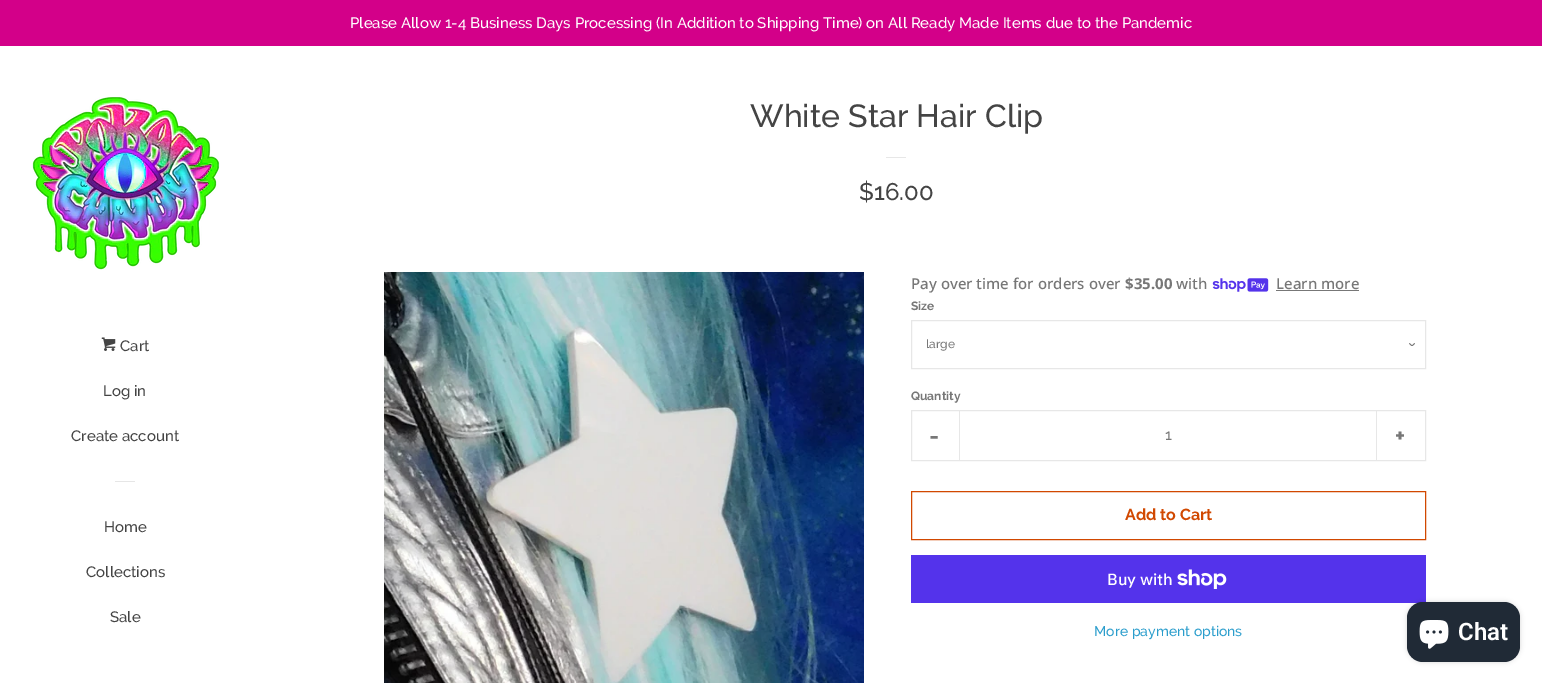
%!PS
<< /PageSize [1542 683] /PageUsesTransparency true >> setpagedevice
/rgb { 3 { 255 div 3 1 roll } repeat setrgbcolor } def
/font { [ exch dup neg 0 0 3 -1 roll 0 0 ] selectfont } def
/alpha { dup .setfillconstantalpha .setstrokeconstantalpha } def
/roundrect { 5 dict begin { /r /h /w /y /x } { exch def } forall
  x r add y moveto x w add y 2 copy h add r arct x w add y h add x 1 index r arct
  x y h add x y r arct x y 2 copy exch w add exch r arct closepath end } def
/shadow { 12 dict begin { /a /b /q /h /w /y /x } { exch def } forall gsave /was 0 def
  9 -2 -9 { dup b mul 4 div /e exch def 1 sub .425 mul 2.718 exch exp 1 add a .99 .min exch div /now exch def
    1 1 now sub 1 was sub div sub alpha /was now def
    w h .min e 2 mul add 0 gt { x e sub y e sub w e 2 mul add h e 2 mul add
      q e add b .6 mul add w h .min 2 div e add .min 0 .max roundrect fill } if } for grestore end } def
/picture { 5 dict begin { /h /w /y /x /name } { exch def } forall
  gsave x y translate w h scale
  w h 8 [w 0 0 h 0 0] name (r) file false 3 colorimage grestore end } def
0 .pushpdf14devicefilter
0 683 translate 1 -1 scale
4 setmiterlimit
255 255 255 rgb
0 0 1542 683 rectfill
(img/1.rgb) 32 97 188 173 picture
(img/2.rgb) 101 337 15 14 picture
[
  [115 481 20 1 230 230 230]
  [0 0 1542 46 211 0 137]
  [886 157 20 1 231 231 231]
] { aload pop rgb rectfill } forall
(img/3.rgb) 384 272 480 411 picture
(img/4.rgb) 1212 278 57 14 picture
119 119 119 rgb
1276 290 83 1 rectfill
(img/5.rgb) 1409 343 6 3 picture
231 231 231 rgb
911.5 320.5 514 48 rectstroke
911.5 410.5 514 50 rectstroke
959 410 1 51 rectfill
1376 410 1 51 rectfill
209 72 0 rgb
911.5 491.5 514 48 rectstroke
84 51 235 rgb
911 555 515 48 rectfill
(img/6.rgb) 1177 569 50 20 picture
0 0 0 rgb
1407 602 113 60 16 2.5 0.15 shadow
32 42 54 rgb
1407 602 113 60 16 roundrect fill
(img/7.rgb) 1419 620 30 29 picture
/Raleway-Medium 15 font
68 68 68 rgb
[
  [(Cart) 120 351]
  [(Log in) 103 396]
  [(Create account) 71 441]
  [(Home) 104 532]
  [(Collections) 86 577]
  [(Sale) 110 622]
] { aload pop moveto show } forall
255 255 255 rgb
350 28 moveto (Please Allow 1-4 Business Days Processing \(In Addition to Shipping Time\) on All Ready Made Items due to the Pandemic) show
/Raleway-Medium 32 font
68 68 68 rgb
750 127 moveto (White Star Hair Clip) show
/Raleway-Medium 24 font
859 200 moveto ($16.00) show
/NotoSans-Medium 15 font
119 119 119 rgb
911 289 moveto (Pay over time for orders over) show
/NotoSans-Bold 15 font
1125 289 moveto ($35.00) show
/NotoSans-Medium 15 font
1176 289 moveto (with) show
1276 289 moveto (Learn more) show
/Raleway-Bold 12 font
911 310 moveto (Size) show
/Raleway-Medium 12 font
926 348 moveto (large) show
/Raleway-Bold 12 font
911 400 moveto (Quantity) show
/Raleway-Bold 24 font
929 444 moveto (-) show
/Raleway-Medium 15 font
1165 440 moveto (1) show
/Raleway-Bold 24 font
1395 444 moveto (+) show
/Raleway-Bold 16 font
209 72 0 rgb
1125 520 moveto (Add to Cart) show
/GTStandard-Medium 16 font
255 255 255 rgb
1107 585 moveto (Buy with) show
/Raleway-Medium 14 font
42 157 204 rgb
1094 636 moveto (More payment options) show
/Roboto-SemiBold 24 font
255 255 255 rgb
1458 640 moveto (Chat) show
.poppdf14devicefilter showpage
